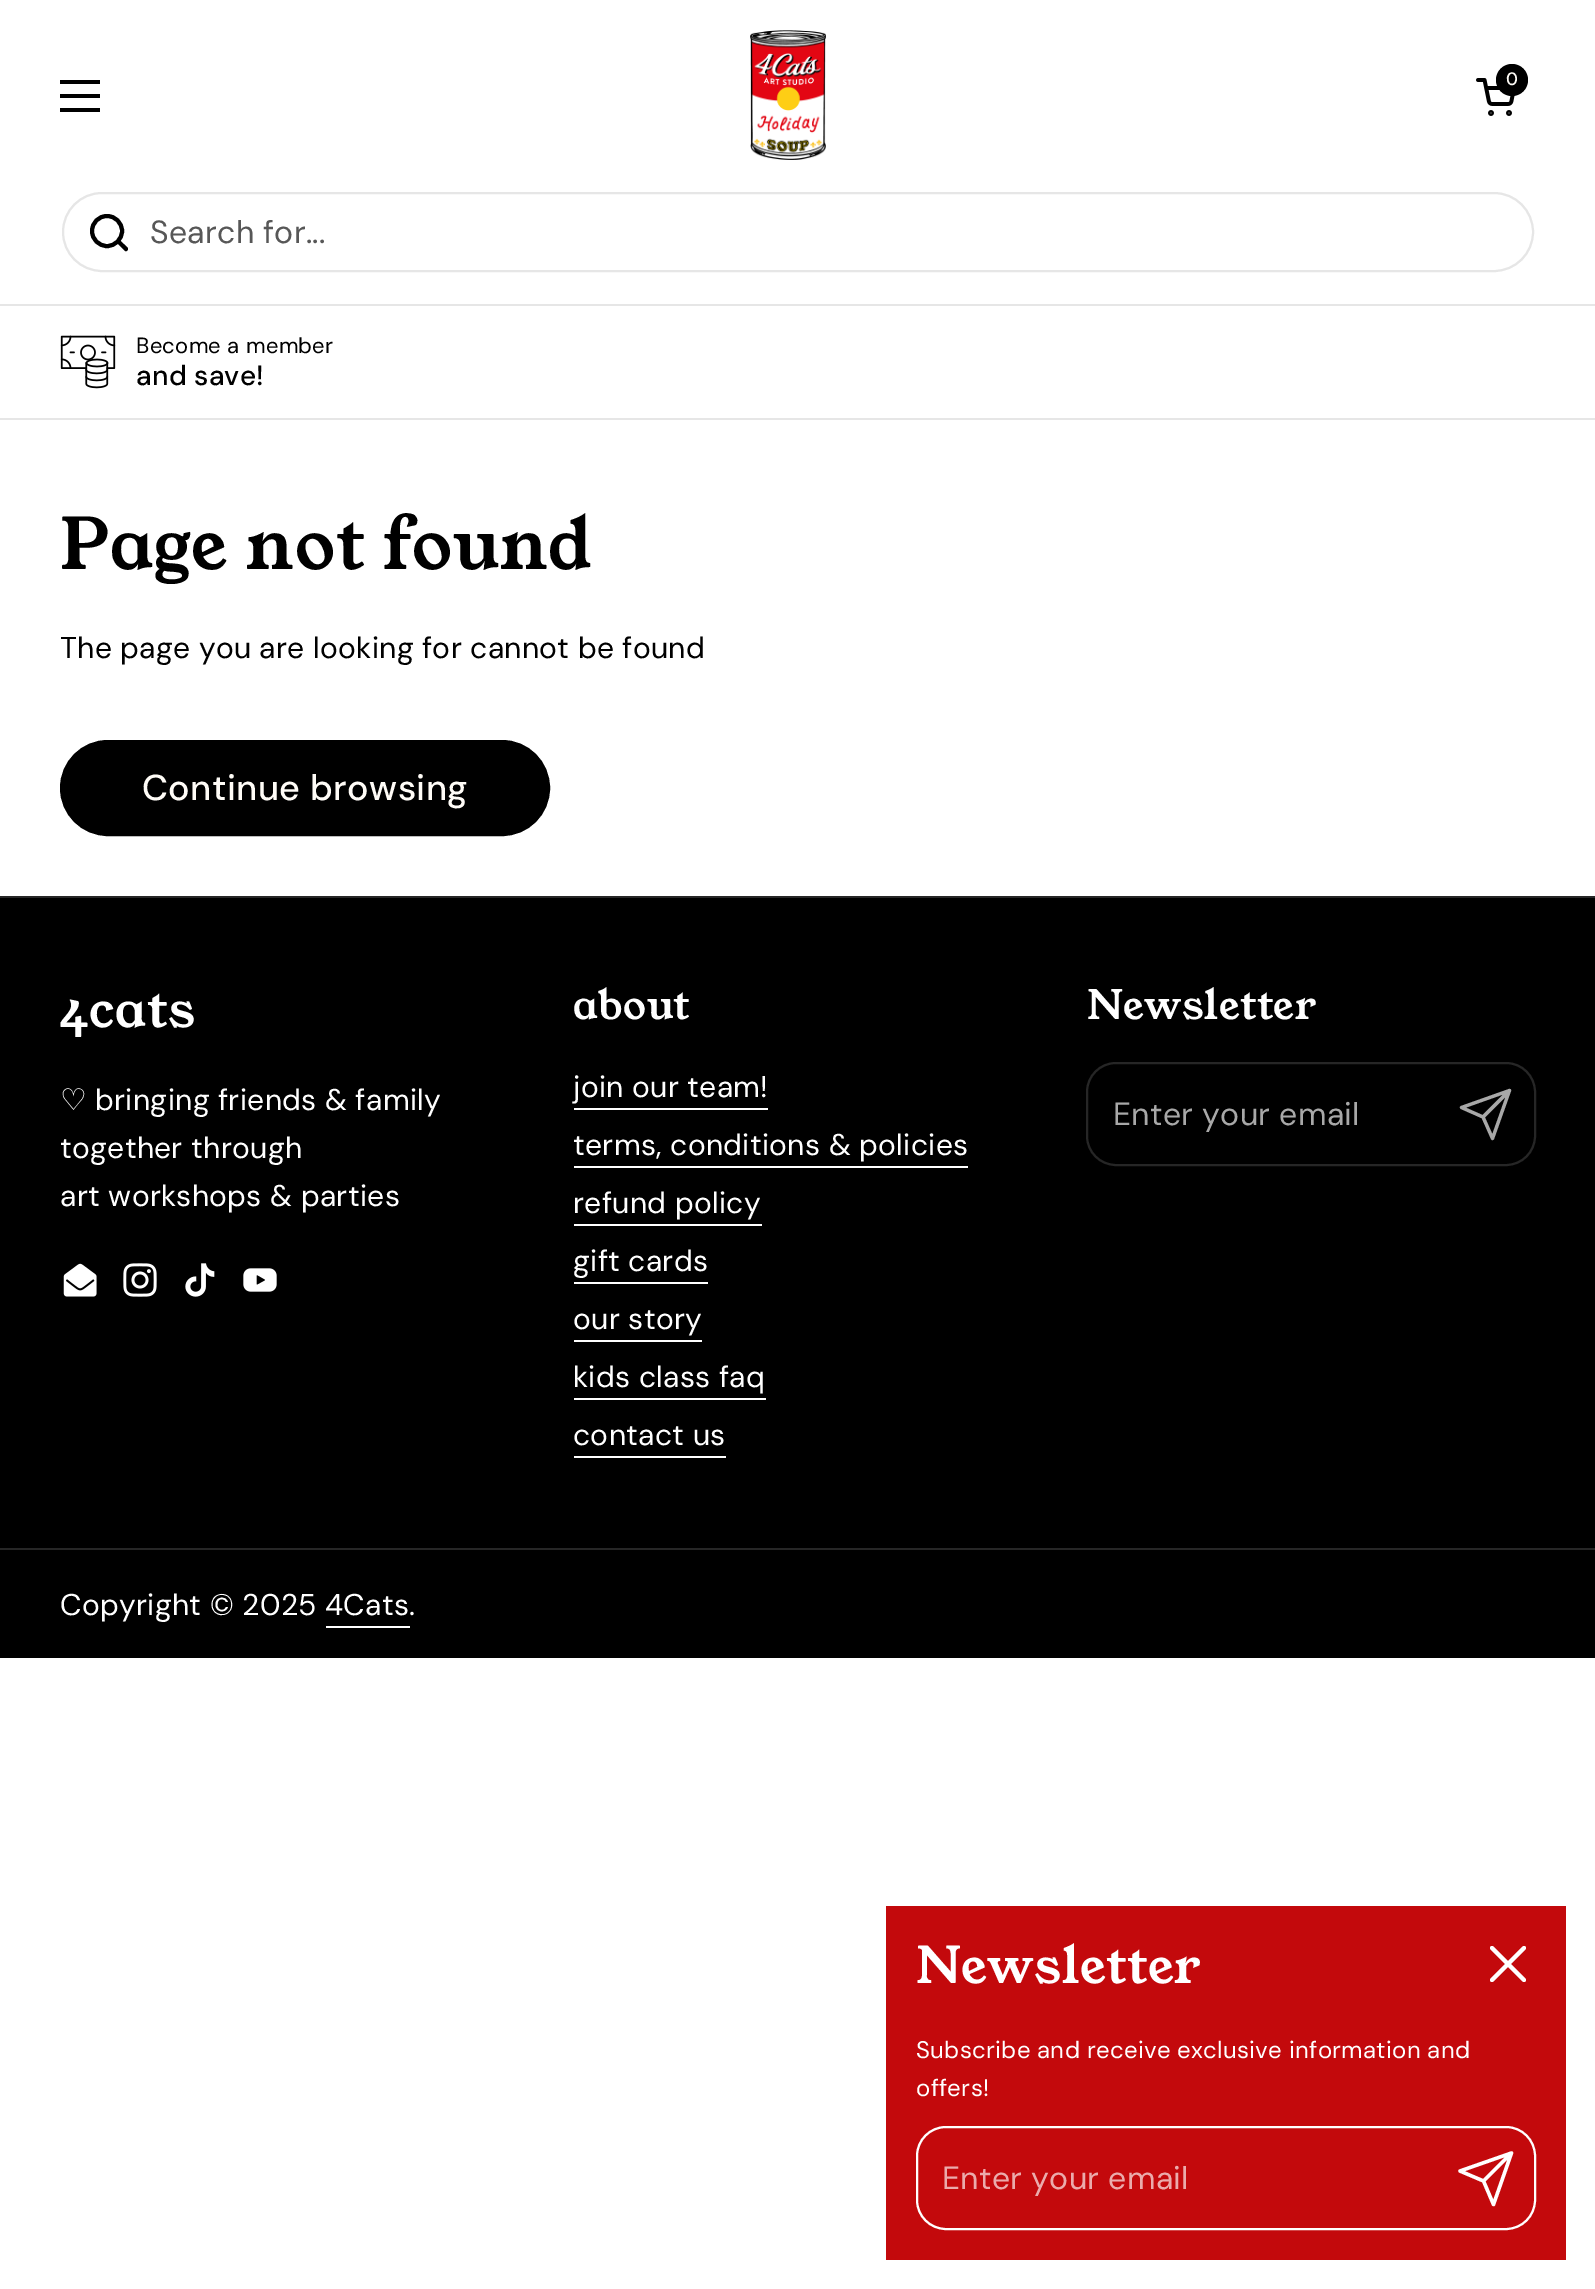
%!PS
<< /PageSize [1595 2289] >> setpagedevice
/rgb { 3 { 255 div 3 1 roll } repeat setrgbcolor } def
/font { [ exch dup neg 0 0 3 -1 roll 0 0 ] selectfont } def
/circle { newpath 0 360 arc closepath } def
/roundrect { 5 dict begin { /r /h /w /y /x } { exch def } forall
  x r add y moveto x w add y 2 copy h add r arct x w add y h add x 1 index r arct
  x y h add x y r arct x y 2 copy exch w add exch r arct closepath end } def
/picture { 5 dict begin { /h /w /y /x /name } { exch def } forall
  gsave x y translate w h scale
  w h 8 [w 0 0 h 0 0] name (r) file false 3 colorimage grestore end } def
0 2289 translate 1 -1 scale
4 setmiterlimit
255 255 255 rgb
0 0 1595 2289 rectfill
[
  [60 80 40 4 0 0 0]
  [60 94 40 4 0 0 0]
  [60 108 40 4 0 0 0]
] { aload pop rgb rectfill } forall
(img/1.rgb) 750 30 76 130 picture
(img/2.rgb) 1476 78 39 38 picture
1512 80 16 circle fill
230 230 230 rgb
0 304 1595 2 rectfill
2 setlinewidth
63 193 1470 78 39 roundrect stroke
0 0 0 rgb
4 setlinewidth
107 231 15 circle stroke
120 240.5 moveto 119 239 lineto 116 242 lineto 117.5 243.5 lineto closepath 124.5 250.5 moveto 126.5 252.5 129 249.5 127.5 247.5 curveto closepath 117.5 243.5 moveto 124.5 250.5 lineto 127.5 247.5 lineto 120 240.5 lineto closepath fill
230 230 230 rgb
0 418 1595 2 rectfill
(img/3.rgb) 60 335 56 54 picture
0 0 0 rgb
61 741 488 94 47 roundrect gsave fill grestore
2 setlinewidth
stroke
0 898 1595 760 rectfill
38 38 38 rgb
0 896 1595 2 rectfill
(img/4.rgb) 63 1263 34 34 picture
(img/5.rgb) 123 1263 34 34 picture
(img/6.rgb) 185 1263 30 34 picture
(img/7.rgb) 243 1268 34 24 picture
[
  [574 1108 194 2 255 255 255]
  [574 1166 394 2 255 255 255]
  [574 1224 188 2 255 255 255]
  [574 1282 134 2 255 255 255]
  [574 1340 128 2 255 255 255]
  [574 1398 192 2 255 255 255]
  [574 1456 152 2 255 255 255]
] { aload pop rgb rectfill } forall
38 38 38 rgb
1087 1063 448 102 29 roundrect stroke
168 168 168 rgb
3.2 setlinewidth
1 setlinecap
1 setlinejoin
1509.5 1090.5 moveto 1483 1117 lineto 1509.5 1090.5 moveto 1492.5 1138.5 lineto 1483 1117 lineto 1461.5 1107.5 lineto closepath stroke
[
  [0 1548 1595 2 38 38 38]
  [326 1626 84 2 255 255 255]
  [886 1906 680 354 195 9 12]
] { aload pop rgb rectfill } forall
255 255 255 rgb
2 setlinewidth
0 setlinecap
0 setlinejoin
917 2127 618 102 29 roundrect stroke
3.4 setlinewidth
1 setlinecap
1 setlinejoin
1511.5 2153 moveto 1483.5 2181 lineto 1511.5 2153 moveto 1493.5 2204.5 lineto 1483.5 2181 lineto 1460 2171 lineto closepath stroke
4 setlinewidth
1524 1948 moveto 1492 1980 lineto 1492 1948 moveto 1524 1980 lineto stroke
/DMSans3-Medium 18 font
255 252 247 rgb
1506 85 moveto 0.3 0 (0) ashow
/DMSans-Regular 32 font
87 87 87 rgb
150 243 moveto 0.3 0 (Search for...) ashow
/DMSans-Regular 22 font
0 0 0 rgb
136 353 moveto 0.3 0 (Become a member) ashow
/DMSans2-Medium 28 font
136 385 moveto 0.25 0 (and save!) ashow
/YoungSerif-Regular 70 font
60 569 moveto 0.75 0 (Page not found) ashow
/DMSans-Regular 30 font
60 658 moveto 0.3 0 (The page you are looking for cannot be found) ashow
/DMSans-Medium 36 font
255 252 247 rgb
142 800 moveto 0.4 0 (Continue browsing) ashow
/YoungSerif-Regular 50 font
255 255 255 rgb
60 1027 moveto 0.5 0 (4cats) ashow
/DejaVuSans-Regular 30 font
60 1110 moveto 0.3 0 (♡) ashow
/DMSans-Regular 30 font
95 1110 moveto 0.3 0 (bringing friends & family) ashow
60 1158 moveto 0.3 0 (together through) ashow
60 1206 moveto 0.3 0 (art workshops & parties) ashow
/YoungSerif-Regular 40 font
573 1019 moveto 0.5 0 (about) ashow
/DMSans-Regular 30 font
573 1097 moveto 0.3 0 (join our team!) ashow
573 1155 moveto 0.3 0 (terms, conditions & policies) ashow
573 1213 moveto 0.3 0 (refund policy) ashow
573 1271 moveto 0.3 0 (gift cards) ashow
573 1329 moveto 0.3 0 (our story) ashow
573 1387 moveto 0.3 0 (kids class faq) ashow
573 1445 moveto 0.3 0 (contact us) ashow
/YoungSerif-Regular 40 font
1087 1019 moveto 0.5 0 (Newsletter) ashow
/DMSans-Regular 32 font
168 168 168 rgb
1113 1125 moveto 0.3 0 (Enter your email) ashow
/DMSans-Regular 30 font
255 255 255 rgb
60 1615 moveto 0.3 0 (Copyright © 2025 4Cats.) ashow
/YoungSerif-Regular 50 font
916 1983 moveto 0.5 0 (Newsletter) ashow
/DMSans-Regular 24 font
916 2058 moveto 0.3 0 (Subscribe and receive exclusive information and) ashow
916 2096 moveto 0.3 0 (offers!) ashow
/DMSans-Regular 32 font
235 171 172 rgb
942 2189 moveto 0.3 0 (Enter your email) ashow
showpage
